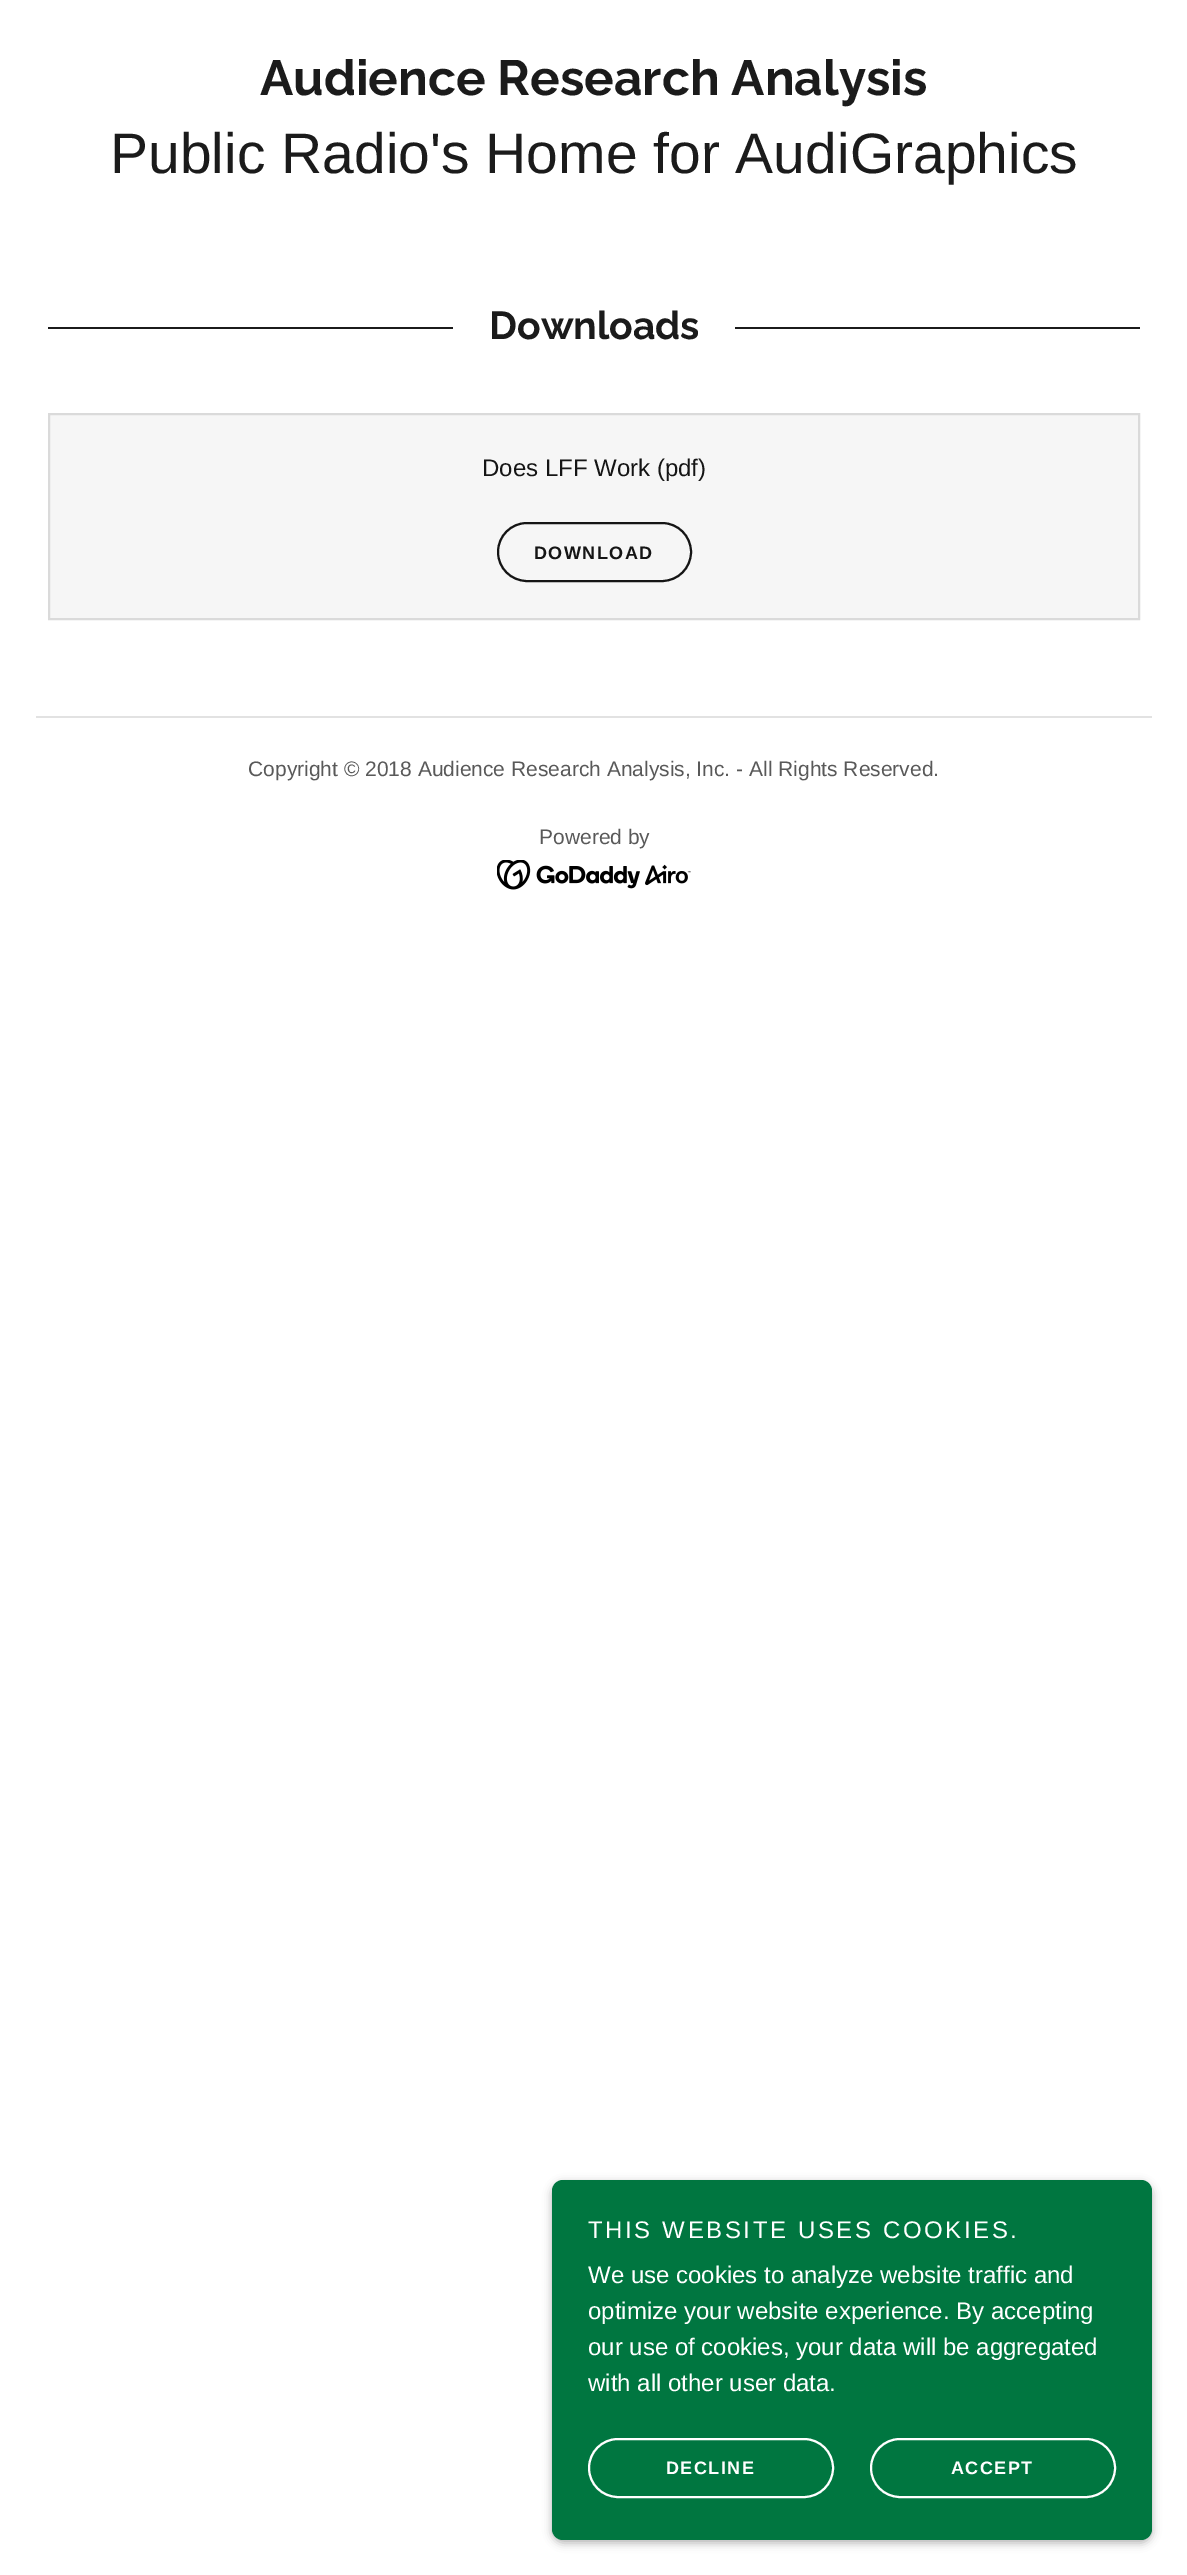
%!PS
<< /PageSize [1187 2575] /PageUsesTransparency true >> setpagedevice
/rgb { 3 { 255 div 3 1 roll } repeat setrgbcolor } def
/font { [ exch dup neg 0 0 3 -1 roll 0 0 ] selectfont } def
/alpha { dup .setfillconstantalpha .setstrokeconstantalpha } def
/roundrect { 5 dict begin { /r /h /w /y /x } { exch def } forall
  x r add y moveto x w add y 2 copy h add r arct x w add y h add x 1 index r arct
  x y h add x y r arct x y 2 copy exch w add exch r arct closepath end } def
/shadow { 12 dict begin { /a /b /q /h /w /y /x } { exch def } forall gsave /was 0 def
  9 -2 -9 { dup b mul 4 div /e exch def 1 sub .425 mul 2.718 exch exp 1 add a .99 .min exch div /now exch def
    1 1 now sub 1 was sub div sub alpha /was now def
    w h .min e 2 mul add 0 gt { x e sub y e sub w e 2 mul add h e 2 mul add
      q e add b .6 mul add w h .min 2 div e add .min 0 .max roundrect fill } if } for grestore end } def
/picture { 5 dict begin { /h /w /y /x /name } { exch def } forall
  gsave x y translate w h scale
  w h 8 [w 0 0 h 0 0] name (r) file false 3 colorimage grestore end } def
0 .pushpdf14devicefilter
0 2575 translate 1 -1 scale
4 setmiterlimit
255 255 255 rgb
0 0 1187 2575 rectfill
27 27 27 rgb
48 327 405 2 rectfill
735 327 405 2 rectfill
246 246 246 rgb
49 414 moveto 1139 414 lineto 1139 619 lineto 49 619 lineto closepath gsave fill grestore
218 218 218 rgb
2 setlinewidth
stroke
21 21 21 rgb
498 523 193 58 29 roundrect stroke
226 226 226 rgb
36 716 1116 2 rectfill
(img/1.rgb) 497 860 194 30 picture
0 0 0 rgb
552 2183 600 360 11 4.5 0.3 shadow
0 118 64 rgb
552 2180 600 360 11 roundrect fill
255 255 255 rgb
589 2439 244 58 29 roundrect stroke
871 2439 244 58 29 roundrect stroke
/Raleway-Bold 49.5 font
27 27 27 rgb
260 95 moveto (Audience Research Analysis) show
/LiberationSans-Regular 57 font
110 173 moveto (Public Radio's Home for AudiGraphics) show
/Raleway-Bold 39 font
489 339 moveto (Downloads) show
/LiberationSans-Regular 24 font
21 21 21 rgb
482 476 moveto (Does LFF Work \(pdf\)) show
/LiberationSans-Bold 18 font
534 559 moveto 1.5 0 (DOWNLOAD) ashow
/LiberationSans-Regular 21 font
89 89 89 rgb
248 776 moveto (Copyright © 2018 Audience Research Analysis, Inc. - All Rights Reserved.) show
539 844 moveto (Powered by) show
/LiberationSans-Regular 24 font
255 255 255 rgb
588 2238 moveto 2.6 0 (THIS WEBSITE USES COOKIES.) ashow
[
  [(We use cookies to analyze website traffic and) 588 2283]
  [(optimize your website experience. By accepting) 588 2319]
  [(our use of cookies, your data will be aggregated) 588 2355]
  [(with all other user data.) 588 2391]
] { aload pop moveto show } forall
/LiberationSans-Bold 18 font
666 2474 moveto 1.5 0 (DECLINE) ashow
951 2474 moveto 1.5 0 (ACCEPT) ashow
.poppdf14devicefilter showpage
